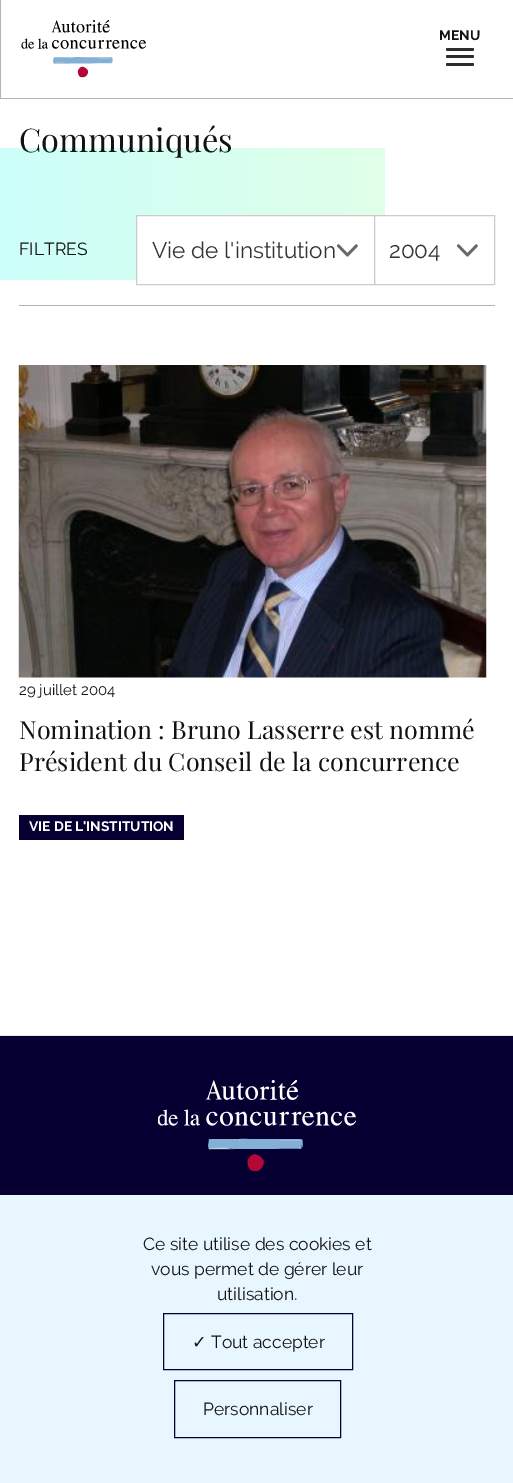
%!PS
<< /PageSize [513 1483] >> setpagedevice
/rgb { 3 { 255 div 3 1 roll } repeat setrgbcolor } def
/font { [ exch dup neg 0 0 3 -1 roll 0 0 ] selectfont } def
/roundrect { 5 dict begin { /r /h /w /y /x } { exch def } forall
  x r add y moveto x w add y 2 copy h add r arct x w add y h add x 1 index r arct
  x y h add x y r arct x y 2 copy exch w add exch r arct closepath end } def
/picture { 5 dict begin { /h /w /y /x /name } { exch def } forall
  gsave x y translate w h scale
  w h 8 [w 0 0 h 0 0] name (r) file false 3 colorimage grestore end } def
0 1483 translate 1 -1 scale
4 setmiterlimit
255 255 255 rgb
0 0 513 1483 rectfill
180 180 180 rgb
0 98 513 1 rectfill
0 0 1 99 rectfill
(img/1.rgb) 21 20 125 58 picture
46 46 46 rgb
446 48 28 3 1.5 roundrect fill
446 55 28 3 1.5 roundrect fill
446 63 28 3 1.5 roundrect fill
gsave 0 148 moveto 385 148 lineto 385 280 lineto 0 280 lineto closepath clip newpath
<< /ShadingType 2 /ColorSpace /DeviceRGB /Coords [0 214 385 214] /Extend [true true] /Function << /FunctionType 2 /Domain [0 1] /C0 [0.8 1 0.98] /C1 [0.878 1 0.91] /N 1 >> >> shfill grestore
180 180 180 rgb
19 305 476 1 rectfill
255 255 255 rgb
137 216 237 64 rectfill
204 204 204 rgb
136.5 215.5 238 69 rectstroke
(img/2.rgb) 336 244 22 13 picture
255 255 255 rgb
375 216 10 64 rectfill
204 204 204 rgb
374.5 215.5 120 69 rectstroke
(img/2.rgb) 456 244 22 13 picture
(img/3.rgb) 18 365 469 313 picture
[
  [19 815 165 25 5 0 49]
  [0 1036 513 159 5 0 49]
  [0 1035 513 1 229 229 229]
] { aload pop rgb rectfill } forall
(img/4.rgb) 158 1080 198 91 picture
232 247 255 rgb
0 1195 513 288 rectfill
5 0 49 rgb
163.5 1313.5 189 56 rectstroke
174.5 1380.5 166 57 rectstroke
/Raleway-Bold 13.75 font
19 18 18 rgb
439 40 moveto (MENU) show
/PlayfairDisplay-Regular 32.5 font
19 152 moveto (Communiqués) show
/Raleway-Regular 17.5 font
19 255 moveto (FILTRES) show
/Raleway-Regular 22.5 font
51 51 51 rgb
152 258 moveto (Vie de l'institution) show
389 258 moveto (2004) show
/Raleway-Regular 15 font
19 18 18 rgb
19 695 moveto (29 juillet 2004) show
/PlayfairDisplay-Regular 25 font
19 739 moveto (Nomination : Bruno Lasserre est nommé) show
19 771 moveto (Président du Conseil de la concurrence) show
/Raleway-Bold 13.75 font
255 255 255 rgb
29 831 moveto (VIE DE L'INSTITUTION) show
/Raleway-Regular 17.5 font
19 18 18 rgb
[
  [(Ce site utilise des cookies et) 143 1250]
  [(vous permet de gérer leur) 151 1275]
  [(utilisation.) 217 1300]
] { aload pop moveto show } forall
/DejaVuSans-Regular 17.5 font
192 1348 moveto (✓) show
/Raleway-Regular 17.5 font
211 1348 moveto (Tout accepter) show
203 1415 moveto (Personnaliser) show
showpage
